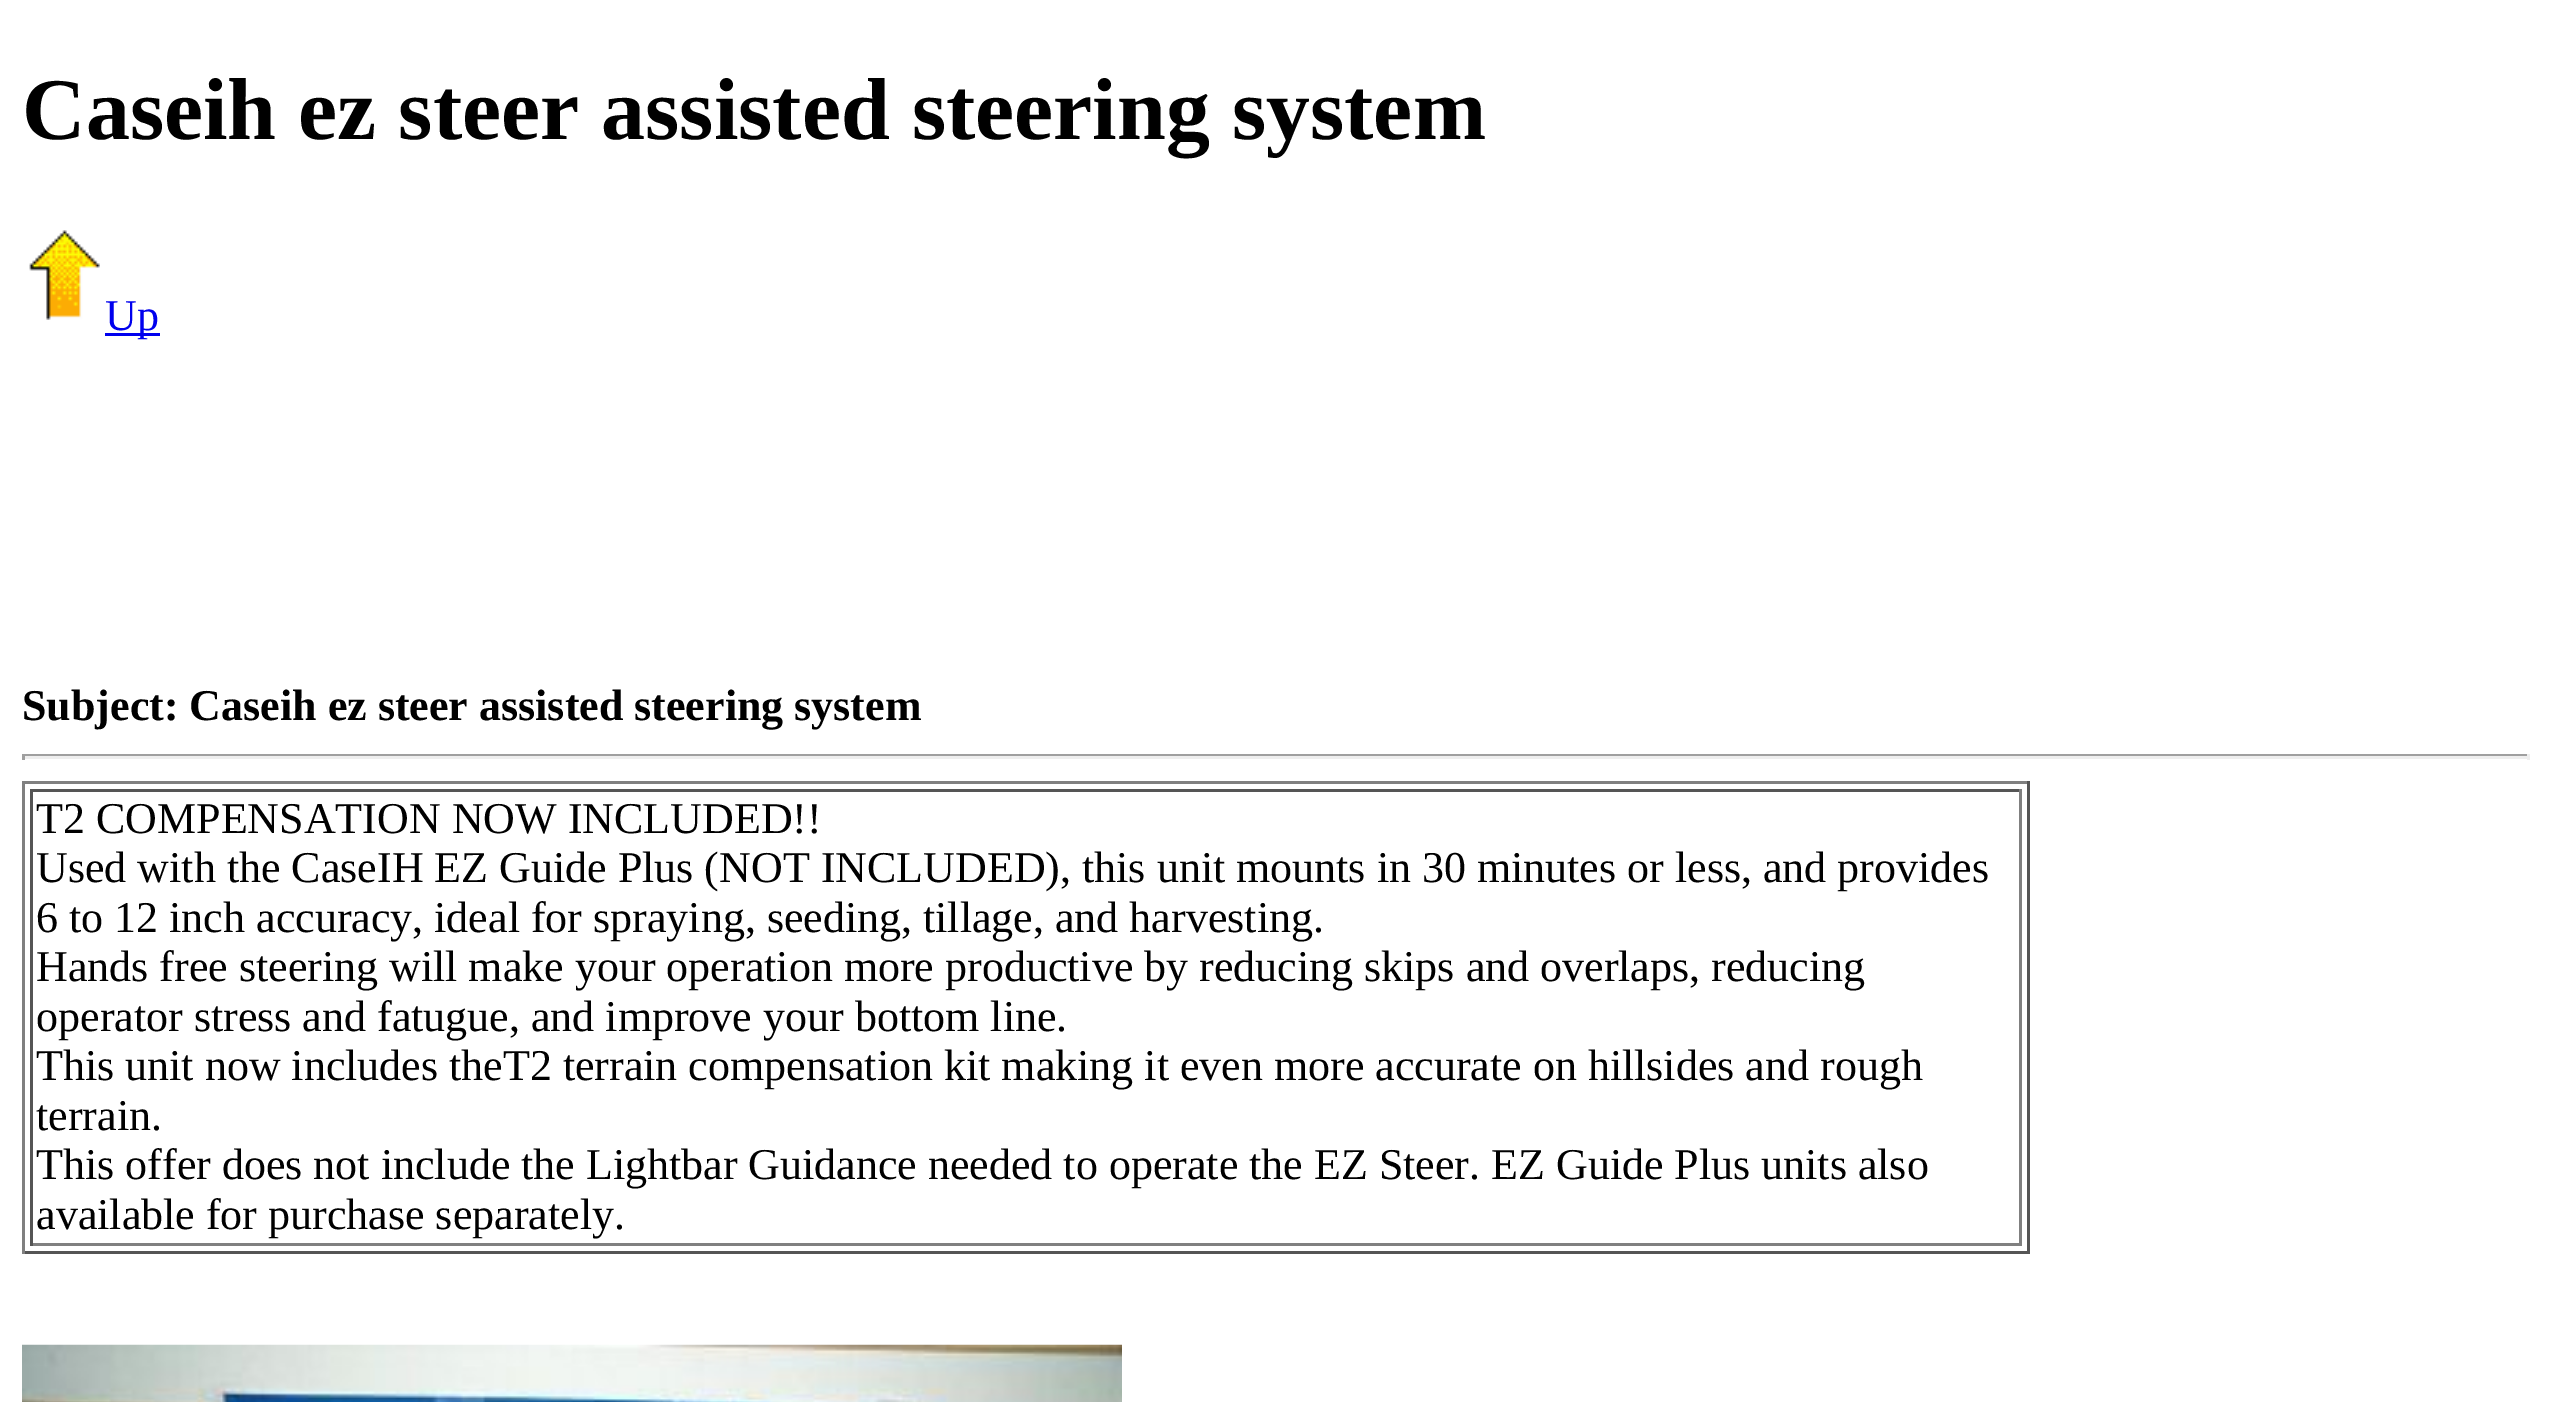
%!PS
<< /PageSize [2550 1402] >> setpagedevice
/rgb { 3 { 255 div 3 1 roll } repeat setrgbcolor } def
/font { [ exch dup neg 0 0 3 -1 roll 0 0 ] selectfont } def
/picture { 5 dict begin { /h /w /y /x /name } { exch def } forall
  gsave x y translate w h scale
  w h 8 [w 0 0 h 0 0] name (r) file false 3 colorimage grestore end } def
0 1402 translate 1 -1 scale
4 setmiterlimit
255 255 255 rgb
0 0 2550 1402 rectfill
(img/1.rgb) 29 230 71 90 picture
[
  [105 333 55 3 0 0 238]
  [22 754 2508 2 159 159 159]
  [2527 754 3 6 238 238 238]
  [22 756 2508 3 238 238 238]
  [22 754 3 6 159 159 159]
  [22 781 2008 3 128 128 128]
  [2027 781 3 473 85 85 85]
  [22 1251 2008 3 85 85 85]
  [22 781 3 473 128 128 128]
  [30 789 1991 3 85 85 85]
  [2019 789 3 457 128 128 128]
  [30 1243 1991 3 128 128 128]
  [30 789 3 457 85 85 85]
] { aload pop rgb rectfill } forall
(img/2.rgb) 22 1344 1100 58 picture
/LiberationSerif-Bold 88 font
0 0 0 rgb
22 139 moveto (Caseih ez steer assisted steering system) show
/LiberationSerif-Regular 44 font
0 0 238 rgb
105 330 moveto (Up) show
/LiberationSerif-Bold 44 font
0 0 0 rgb
22 720 moveto (Subject: Caseih ez steer assisted steering system) show
/LiberationSerif-Regular 44 font
[
  [(T2 COMPENSATION NOW INCLUDED!!) 36 833]
  [(Used with the CaseIH EZ Guide Plus \(NOT INCLUDED\), this unit mounts in 30 minutes or less, and provides) 36 882]
  [(6 to 12 inch accuracy, ideal for spraying, seeding, tillage, and harvesting.) 36 932]
  [(Hands free steering will make your operation more productive by reducing skips and overlaps, reducing) 36 981]
  [(operator stress and fatugue, and improve your bottom line.) 36 1031]
  [(This unit now includes theT2 terrain compensation kit making it even more accurate on hillsides and rough) 36 1080]
  [(terrain.) 36 1130]
  [(This offer does not include the Lightbar Guidance needed to operate the EZ Steer. EZ Guide Plus units also) 36 1179]
  [(available for purchase separately.) 36 1229]
] { aload pop moveto show } forall
showpage
